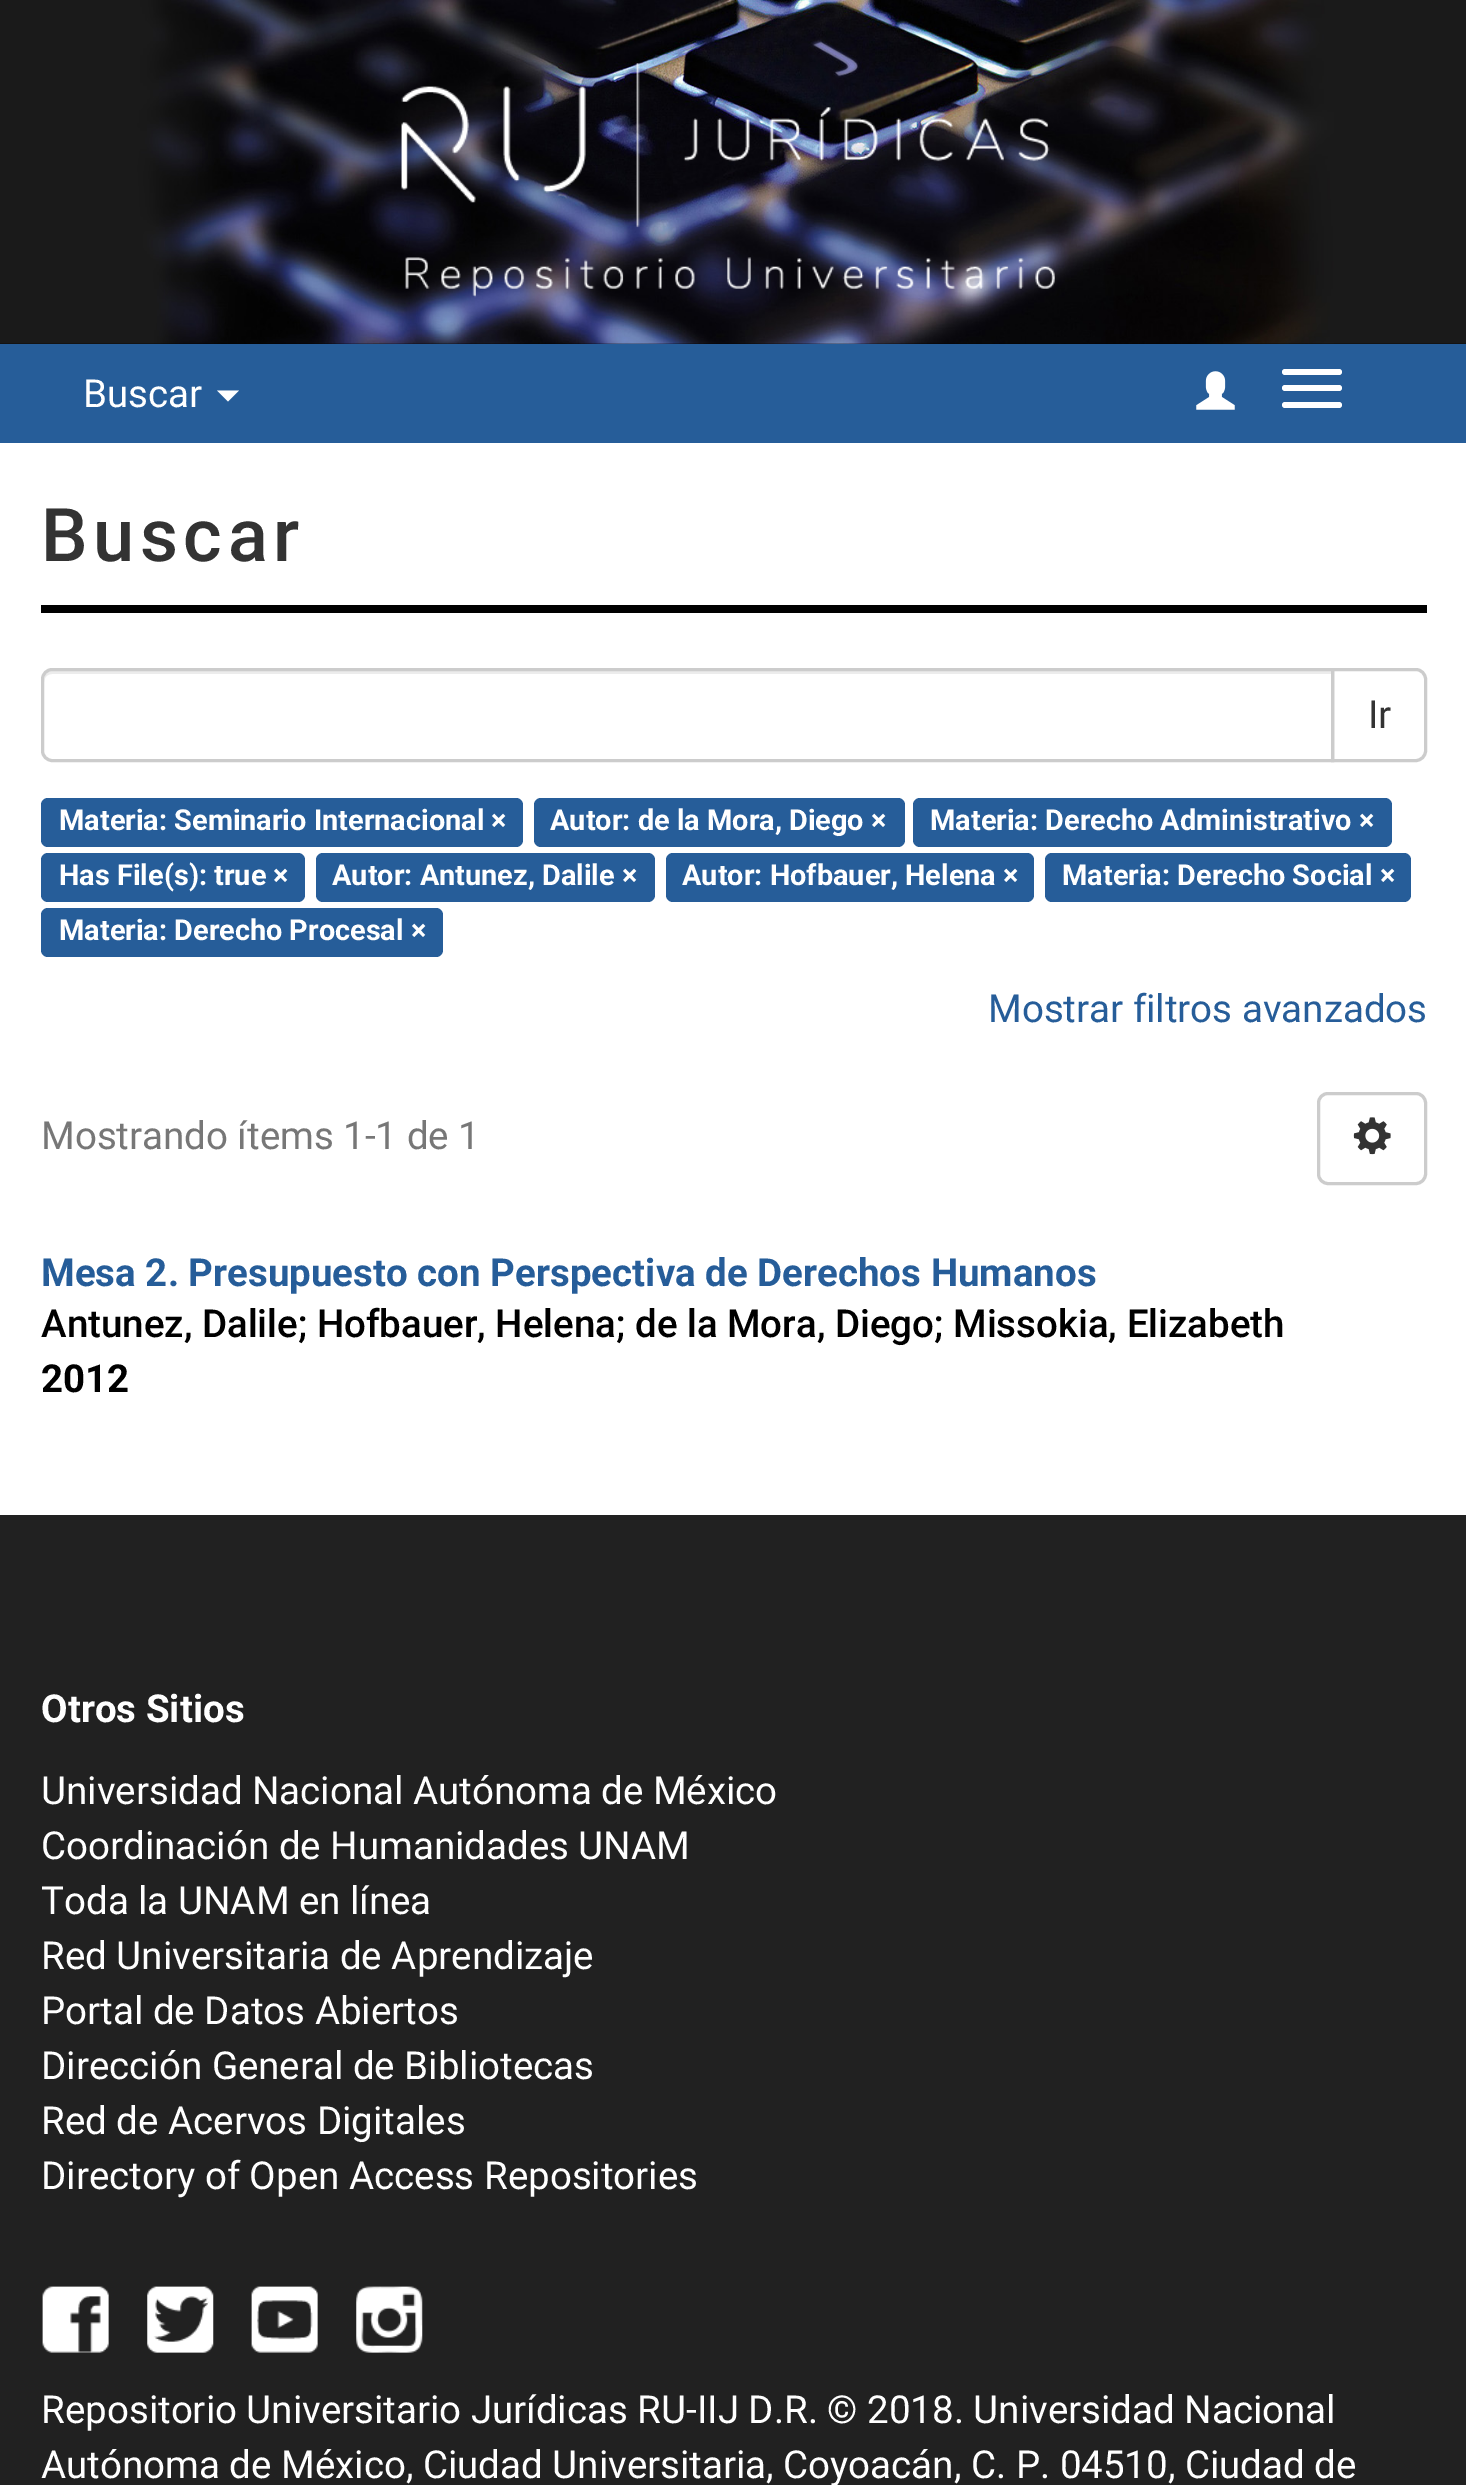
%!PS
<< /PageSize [1466 2485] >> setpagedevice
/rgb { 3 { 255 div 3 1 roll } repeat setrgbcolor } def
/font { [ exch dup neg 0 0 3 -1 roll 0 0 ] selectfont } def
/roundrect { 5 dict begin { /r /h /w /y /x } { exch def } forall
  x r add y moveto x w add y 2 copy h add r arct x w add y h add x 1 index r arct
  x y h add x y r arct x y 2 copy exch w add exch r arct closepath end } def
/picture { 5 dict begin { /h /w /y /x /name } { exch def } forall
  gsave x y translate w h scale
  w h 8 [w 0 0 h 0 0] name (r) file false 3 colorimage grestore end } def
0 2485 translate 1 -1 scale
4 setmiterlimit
255 255 255 rgb
0 0 1466 2485 rectfill
(img/1.rgb) 0 0 1466 344 picture
(img/2.rgb) 401 63 654 235 picture
38 93 153 rgb
0 344 1466 99 rectfill
255 255 255 rgb
217 390.5 moveto 239 390.5 lineto 228 401.5 lineto closepath fill
(img/3.rgb) 1196 371 39 39 picture
1282 369 60 6 3 roundrect fill
1282 385 60 6 3 roundrect fill
1282 402 60 6 3 roundrect fill
0 0 0 rgb
41 605 1386 8 rectfill
204 204 204 rgb
3 setlinewidth
1332.5 669.5 moveto 1416 669.5 lineto 1421 669.5 1425.5 674 1425.5 679 curveto 1425.5 751 lineto 1425.5 756 1421 760.5 1416 760.5 curveto 1332.5 760.5 lineto closepath stroke
255 255 255 rgb
52 668 moveto 1334 668 lineto 1334 762 lineto 52 762 lineto 46 762 41 757 41 751 curveto 41 679 lineto 41 673 46 668 52 668 curveto closepath fill
236 236 236 rgb
52 674 moveto 1331 674 lineto 1331 671 lineto 52 671 lineto 46 671 44 677 44 682 curveto 44 677 48 674 52 674 curveto closepath fill
204 204 204 rgb
52 669.5 moveto 1332.5 669.5 lineto 1332.5 760.5 lineto 52 760.5 lineto 47 760.5 42.5 756 42.5 751 curveto 42.5 679 lineto 42.5 674 47 669.5 52 669.5 curveto closepath stroke
38 93 153 rgb
41 798 482 49 7 roundrect fill
534 798 371 49 7 roundrect fill
913 798 479 49 7 roundrect fill
41 853 264 49 7 roundrect fill
316 853 339 49 7 roundrect fill
666 853 368 49 7 roundrect fill
1045 853 366 49 7 roundrect fill
41 908 402 49 7 roundrect fill
204 204 204 rgb
1318.5 1093.5 107 90 9.5 roundrect stroke
(img/4.rgb) 1353 1117 38 38 picture
33 33 33 rgb
0 1515 1466 970 rectfill
(img/5.rgb) 42 2286 67 67 picture
(img/6.rgb) 147 2286 67 67 picture
(img/7.rgb) 251 2286 67 67 picture
(img/8.rgb) 356 2286 67 67 picture
/Roboto-Regular 38.5 font
255 255 255 rgb
83 407 moveto (Buscar) show
/Roboto-Medium 74 font
51 51 51 rgb
41 561 moveto 5.5 0 (Buscar) ashow
/Roboto-Regular 38.5 font
1368 728 moveto (Ir) show
/Roboto-Bold 28.9 font
255 255 255 rgb
[
  [(Materia: Seminario Internacional ×) 59 830]
  [(Autor: de la Mora, Diego ×) 550 830]
  [(Materia: Derecho Administrativo ×) 930 830]
  [(Has File\(s\): true ×) 59 885]
  [(Autor: Antunez, Dalile ×) 332 885]
  [(Autor: Hofbauer, Helena ×) 682 885]
  [(Materia: Derecho Social ×) 1062 885]
  [(Materia: Derecho Procesal ×) 59 940]
] { aload pop moveto show } forall
/Roboto-Regular 38.5 font
38 93 153 rgb
988 1022 moveto (Mostrar filtros avanzados) show
119 119 119 rgb
41 1149 moveto (Mostrando ítems 1-1 de 1) show
/Roboto-Bold 38.5 font
38 93 153 rgb
41 1286 moveto (Mesa 2. Presupuesto con Perspectiva de Derechos Humanos) show
/Roboto-Medium 38.5 font
0 0 0 rgb
41 1337 moveto (Antunez, Dalile; Hofbauer, Helena; de la Mora, Diego; Missokia, Elizabeth) show
/Roboto-Bold 38.5 font
41 1392 moveto (2012) show
255 255 255 rgb
41 1722 moveto (Otros Sitios) show
/Roboto-Regular 38.5 font
[
  [(Universidad Nacional Autónoma de México) 41 1804]
  [(Coordinación de Humanidades UNAM) 41 1859]
  [(Toda la UNAM en línea) 41 1914]
  [(Red Universitaria de Aprendizaje) 41 1969]
  [(Portal de Datos Abiertos) 41 2024]
  [(Dirección General de Bibliotecas) 41 2079]
  [(Red de Acervos Digitales) 41 2134]
  [(Directory of Open Access Repositories) 41 2189]
  [(Repositorio Universitario Jurídicas RU-IIJ D.R. © 2018. Universidad Nacional) 41 2423]
  [(Autónoma de México, Ciudad Universitaria, Coyoacán, C. P. 04510, Ciudad de) 41 2478]
] { aload pop moveto show } forall
showpage
